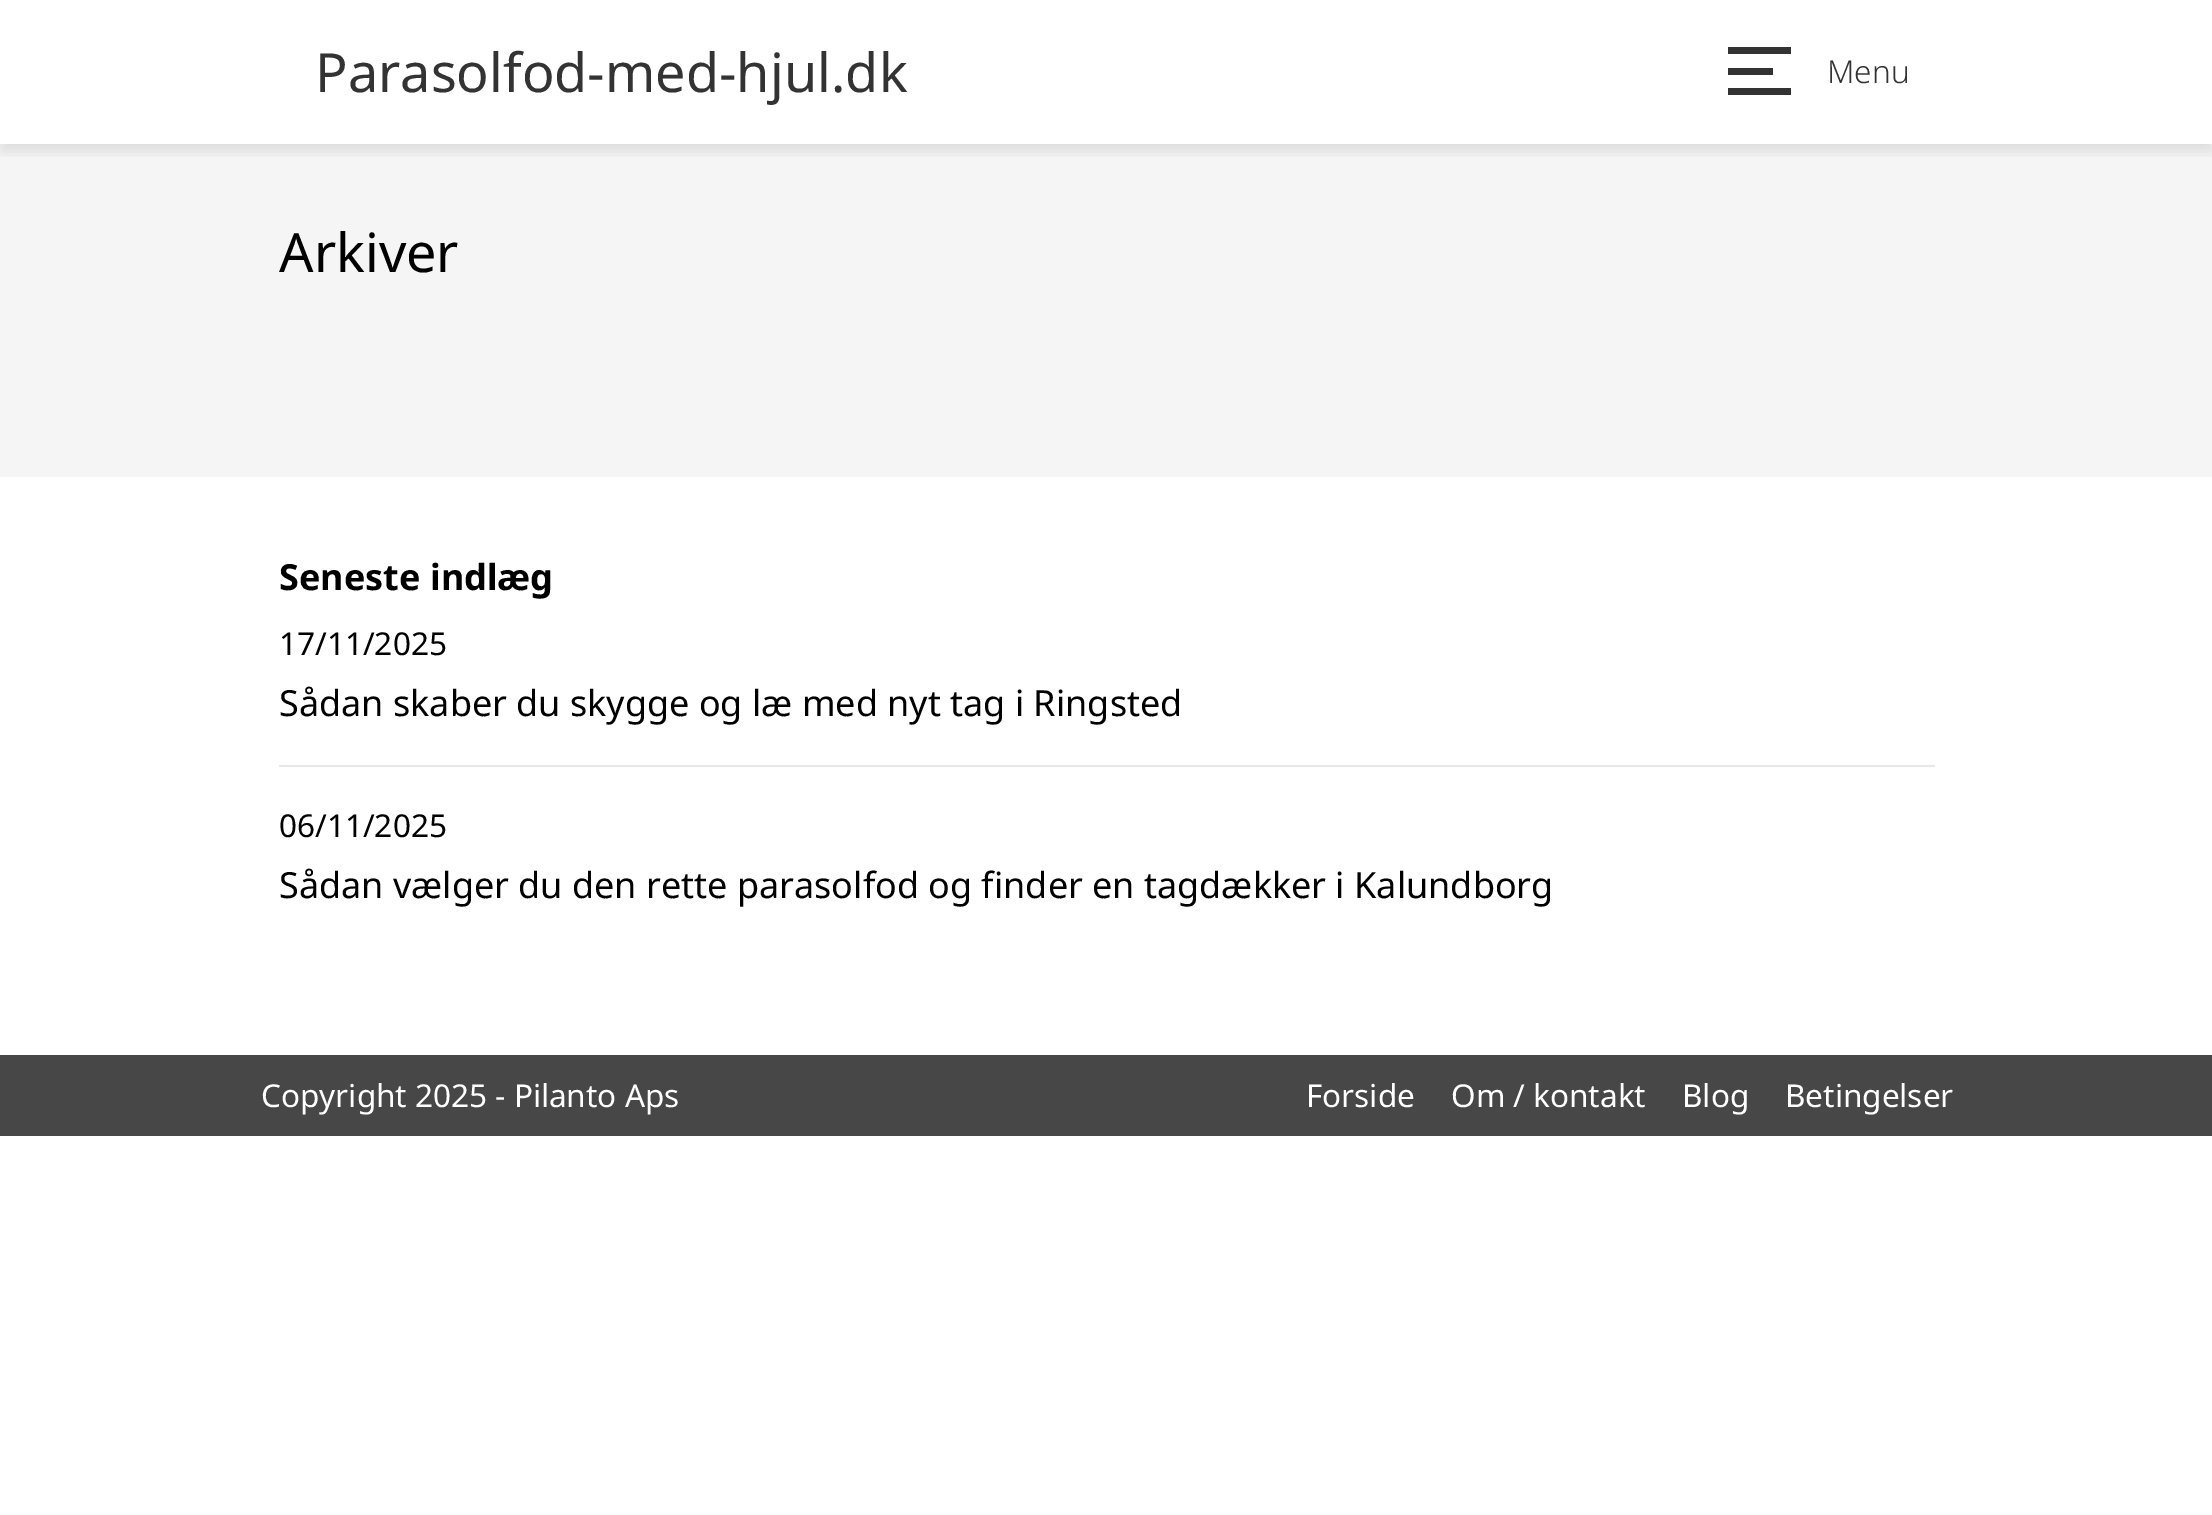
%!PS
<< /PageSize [2212 1515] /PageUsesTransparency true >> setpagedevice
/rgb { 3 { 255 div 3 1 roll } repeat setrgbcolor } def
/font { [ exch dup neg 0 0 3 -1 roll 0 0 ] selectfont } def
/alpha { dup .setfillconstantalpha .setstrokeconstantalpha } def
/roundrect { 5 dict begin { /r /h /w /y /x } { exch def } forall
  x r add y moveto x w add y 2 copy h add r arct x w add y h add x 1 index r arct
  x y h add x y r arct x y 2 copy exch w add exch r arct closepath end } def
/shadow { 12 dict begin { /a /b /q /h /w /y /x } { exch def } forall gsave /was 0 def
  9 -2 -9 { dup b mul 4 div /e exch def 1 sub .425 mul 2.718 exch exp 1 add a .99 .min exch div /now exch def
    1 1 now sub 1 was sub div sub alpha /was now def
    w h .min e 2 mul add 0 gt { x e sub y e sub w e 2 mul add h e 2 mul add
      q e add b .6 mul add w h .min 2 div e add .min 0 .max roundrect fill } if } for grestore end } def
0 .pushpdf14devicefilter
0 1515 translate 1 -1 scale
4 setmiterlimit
255 255 255 rgb
0 0 2212 1515 rectfill
245 245 245 rgb
0 144 2212 333 rectfill
gsave
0 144 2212 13 rectclip
0 0 0 rgb
2 11 2210 140 0 7 0.1 shadow
grestore
[
  [1728 47 63 7 51 51 51]
  [1728 68 45 7 51 51 51]
  [1728 88 63 7 51 51 51]
  [279 765 1656 2 229 231 235]
  [0 1055 2212 81 71 71 71]
] { aload pop rgb rectfill } forall
/NotoSans-Regular 54 font
51 51 51 rgb
315 92 moveto (Parasolfod-med-hjul.dk) show
/NotoSans-Light 31.5 font
1827 83 moveto (Menu) show
/NotoSans-Regular 54 font
0 0 0 rgb
279 272 moveto (Arkiver) show
/NotoSans-Bold 36 font
279 590 moveto (Seneste indlæg) show
/NotoSans-Regular 31.5 font
279 655 moveto (17/11/2025) show
/NotoSans-Regular 36 font
279 716 moveto (Sådan skaber du skygge og læ med nyt tag i Ringsted) show
/NotoSans-Regular 31.5 font
279 837 moveto (06/11/2025) show
/NotoSans-Regular 36 font
279 898 moveto (Sådan vælger du den rette parasolfod og finder en tagdækker i Kalundborg) show
/NotoSans-Regular 31.5 font
255 255 255 rgb
[
  [(Copyright 2025 - Pilanto Aps) 261 1107]
  [(Forside) 1306 1107]
  [(Om / kontakt) 1451 1107]
  [(Blog) 1682 1107]
  [(Betingelser) 1785 1107]
] { aload pop moveto show } forall
.poppdf14devicefilter showpage
